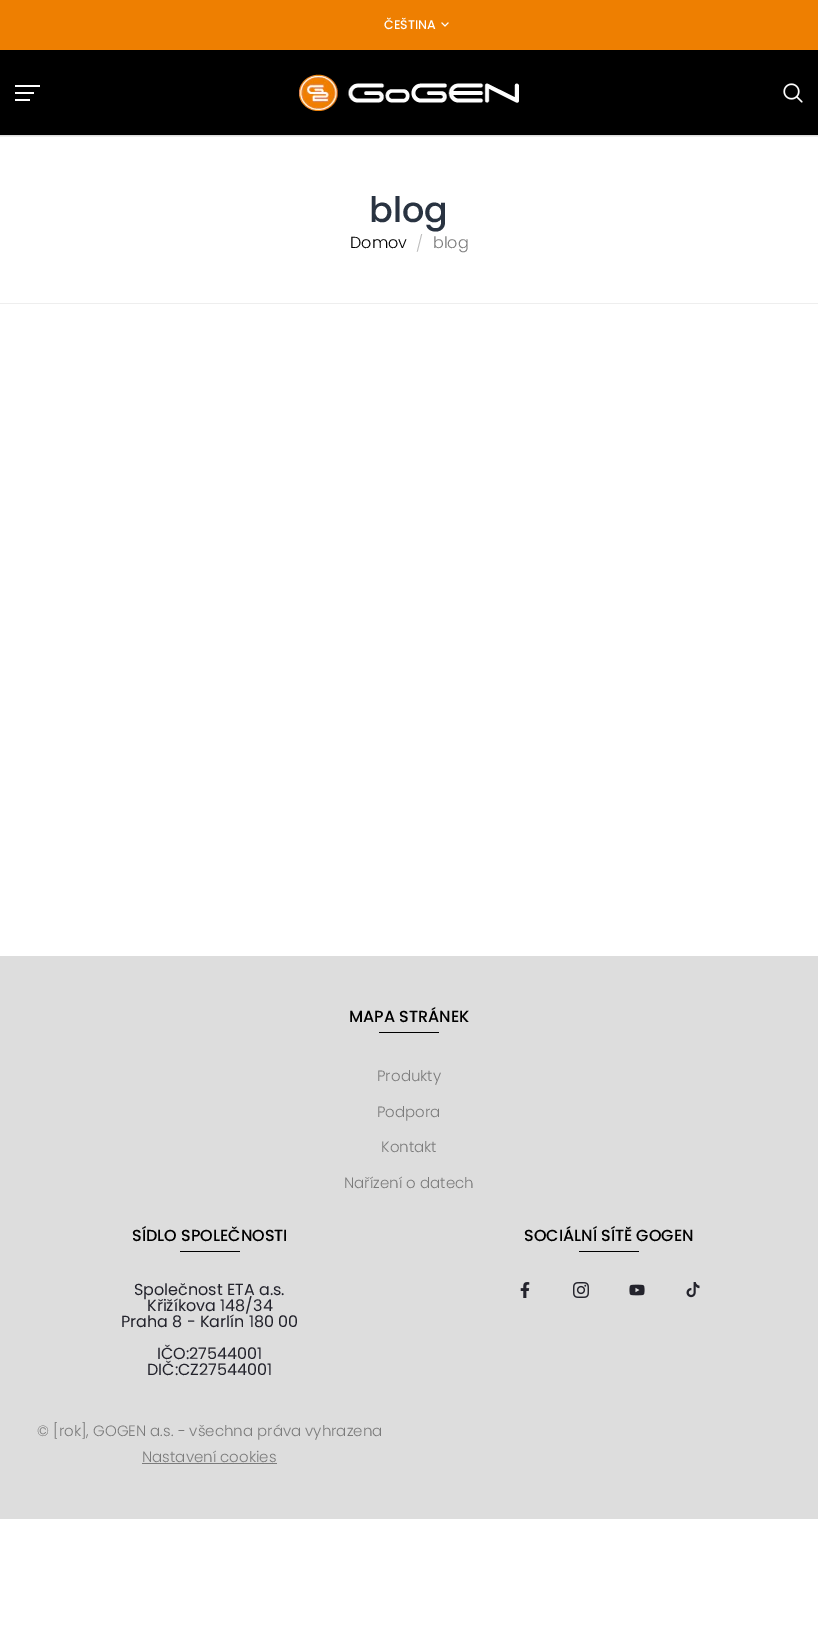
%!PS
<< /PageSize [818 1640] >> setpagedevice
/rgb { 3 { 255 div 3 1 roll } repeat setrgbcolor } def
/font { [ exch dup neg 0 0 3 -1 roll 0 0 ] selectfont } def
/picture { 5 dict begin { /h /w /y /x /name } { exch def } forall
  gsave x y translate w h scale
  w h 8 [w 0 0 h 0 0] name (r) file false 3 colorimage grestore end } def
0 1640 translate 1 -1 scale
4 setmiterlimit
255 255 255 rgb
0 0 818 1640 rectfill
238 127 1 rgb
0 0 818 50 rectfill
255 255 255 rgb
0.8 setlinewidth
2 setlinecap
448 23 moveto 445 26 lineto 442 23 lineto stroke
[
  [0 50 818 85 0 0 0]
  [0 135 818 1 221 221 221]
  [15 85 25 2 255 255 255]
  [15 92 19 2 255 255 255]
  [15 99 15 2 255 255 255]
] { aload pop rgb rectfill } forall
(img/1.rgb) 299 74 220 37 picture
(img/2.rgb) 783 83 20 20 picture
[
  [0 136 818 1 238 238 238]
  [0 303 818 1 238 238 238]
  [0 956 818 563 221 221 221]
  [379 1032 60 1 0 0 0]
  [180 1251 60 1 0 0 0]
  [579 1251 60 1 0 0 0]
] { aload pop rgb rectfill } forall
(img/3.rgb) 520 1282 10 16 picture
(img/4.rgb) 573 1282 16 16 picture
(img/5.rgb) 629 1284 16 12 picture
(img/6.rgb) 686 1282 14 16 picture
123 123 123 rgb
142 1463 135 1 rectfill
/Poppins-Medium 12.5 font
255 255 255 rgb
384 29 moveto (ČEŠTINA) show
/Poppins-Medium 35 font
41 51 65 rgb
369 222 moveto (blog) show
/Poppins-Light 16 font
0 0 0 rgb
350 248 moveto (Domov) show
189 189 189 rgb
416 249 moveto (/) show
123 123 123 rgb
433 248 moveto (blog) show
/Poppins-Medium 16 font
0 0 0 rgb
349 1022 moveto (MAPA STRÁNEK) show
/Poppins-Light 15 font
123 123 123 rgb
[
  [(Produkty) 377 1081]
  [(Podpora) 377 1117]
  [(Kontakt) 381 1152]
  [(Nařízení o datech) 344 1188]
] { aload pop moveto show } forall
/Poppins-Medium 16 font
0 0 0 rgb
132 1241 moveto (SÍDLO SPOLEČNOSTI) show
/Poppins-Regular 16 font
35 35 44 rgb
[
  [(Společnost ETA a.s.) 134 1295]
  [(Křižíkova 148/34) 147 1311]
  [(Praha 8 - Karlín 180 00) 121 1327]
  [(IČO:27544001) 157 1359]
  [(DIČ:CZ27544001) 147 1375]
] { aload pop moveto show } forall
/Poppins-Medium 16 font
0 0 0 rgb
524 1241 moveto (SOCIÁLNÍ SÍTĚ GOGEN) show
/Poppins-Light 15 font
123 123 123 rgb
37 1436 moveto (© [rok], GOGEN a.s. - všechna práva vyhrazena) show
142 1462 moveto (Nastavení cookies) show
showpage
